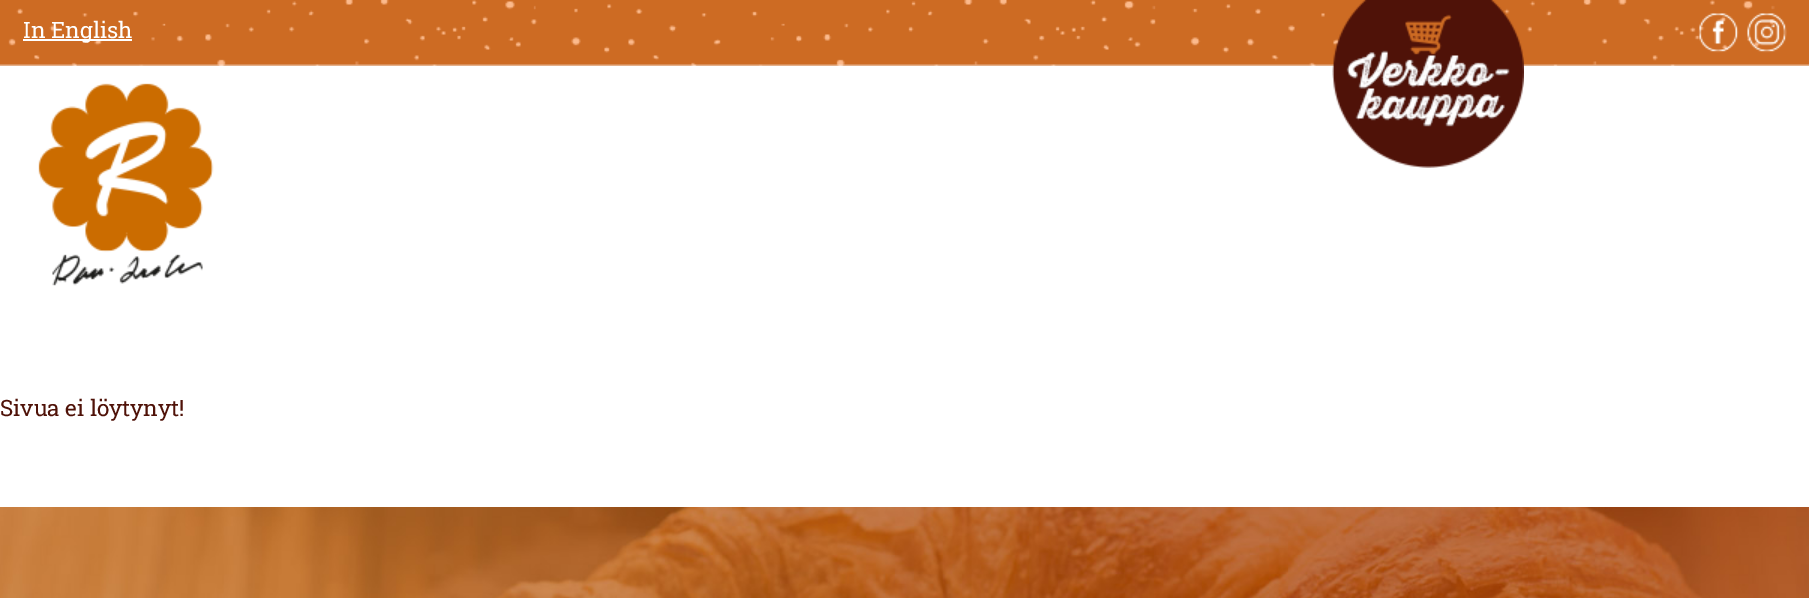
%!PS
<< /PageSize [1809 598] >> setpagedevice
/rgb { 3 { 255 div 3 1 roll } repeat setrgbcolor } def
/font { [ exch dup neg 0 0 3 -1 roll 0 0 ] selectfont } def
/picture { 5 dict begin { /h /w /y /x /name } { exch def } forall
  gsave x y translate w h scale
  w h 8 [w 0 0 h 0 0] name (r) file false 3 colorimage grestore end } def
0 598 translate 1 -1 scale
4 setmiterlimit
255 255 255 rgb
0 0 1809 598 rectfill
(img/1.rgb) 0 0 1809 66 picture
23 39 109 2 rectfill
(img/2.rgb) 1332 0 192 168 picture
(img/3.rgb) 1698 13 41 40 picture
(img/4.rgb) 1747 13 40 40 picture
(img/5.rgb) 38 83 176 203 picture
(img/6.rgb) 0 507 1809 91 picture
/RobotoSlab-Regular 22.5 font
23 38 moveto (In English) show
79 18 8 rgb
0 416 moveto (Sivua ei löytynyt!) show
showpage
